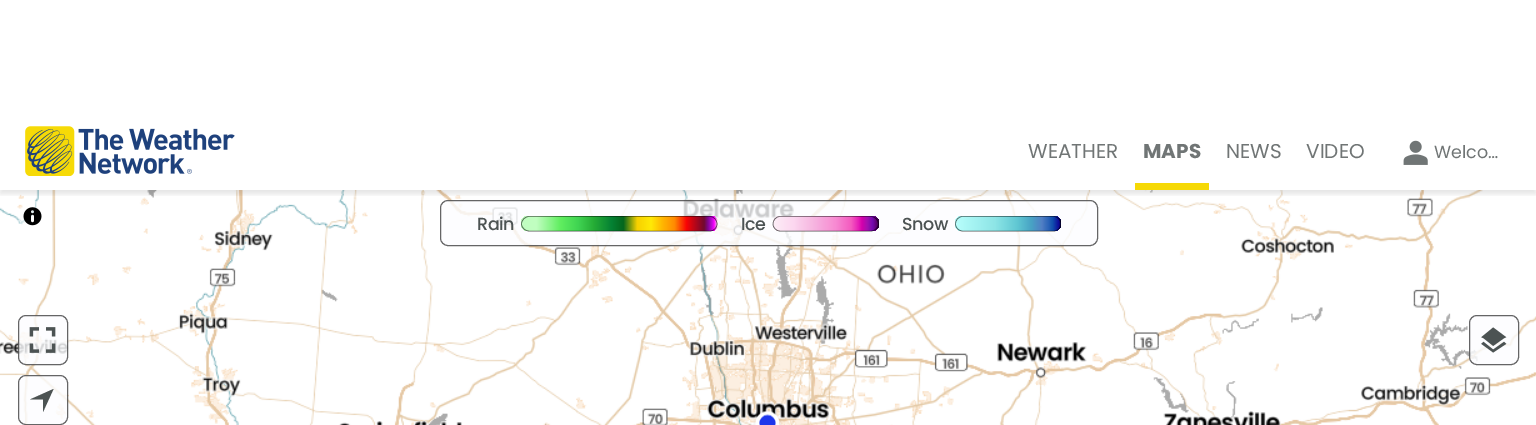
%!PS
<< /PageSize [1536 425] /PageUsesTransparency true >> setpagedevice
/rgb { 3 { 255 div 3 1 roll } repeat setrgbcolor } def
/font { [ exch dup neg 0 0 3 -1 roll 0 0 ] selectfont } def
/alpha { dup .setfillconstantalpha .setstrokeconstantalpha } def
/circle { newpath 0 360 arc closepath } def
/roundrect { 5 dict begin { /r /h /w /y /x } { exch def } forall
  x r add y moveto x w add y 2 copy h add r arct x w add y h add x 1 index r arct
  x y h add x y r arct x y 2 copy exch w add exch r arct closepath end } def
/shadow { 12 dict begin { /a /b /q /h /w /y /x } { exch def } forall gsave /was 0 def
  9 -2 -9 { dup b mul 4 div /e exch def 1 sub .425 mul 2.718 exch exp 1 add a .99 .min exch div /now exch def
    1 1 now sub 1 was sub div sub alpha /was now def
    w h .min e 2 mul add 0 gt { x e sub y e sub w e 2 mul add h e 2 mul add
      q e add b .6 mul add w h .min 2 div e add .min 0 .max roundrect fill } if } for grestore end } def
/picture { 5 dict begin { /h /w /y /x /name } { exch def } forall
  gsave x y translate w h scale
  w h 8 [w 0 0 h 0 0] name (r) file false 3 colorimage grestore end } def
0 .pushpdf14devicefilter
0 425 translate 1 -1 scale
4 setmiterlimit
255 255 255 rgb
0 0 1536 425 rectfill
(img/3.rgb) 0 190 1536 235 picture
0.8 alpha
252 253 255 rgb
440 200 658 46 8 roundrect fill
0.6 alpha
0 0 0 rgb
440.5 200.5 657 45 7.5 roundrect stroke
gsave
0 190 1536 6 rectclip
1 alpha
0 116 1536 78 0 2.5 0.1 shadow
grestore
1 alpha
(img/1.rgb) 25 126 210 50 picture
246 217 6 rgb
1135 183 74 7 rectfill
(img/2.rgb) 1403 140 25 25 picture
(img/4.rgb) 753 410 29 15 picture
0.5 alpha
255 255 255 rgb
33 216 15 circle fill
1 alpha
(img/5.rgb) 23 207 19 19 picture
gsave 521 216 197 15 7.5 roundrect clip newpath
<< /ShadingType 2 /ColorSpace /DeviceRGB /Coords [521 224 718 224] /Extend [true true] /Function << /FunctionType 3 /Domain [0 1] /Functions [<< /FunctionType 2 /Domain [0 1] /C0 [0.753 0.996 0.753] /C1 [0.753 0.996 0.753] /N 1 >> << /FunctionType 2 /Domain [0 1] /C0 [0.753 0.996 0.753] /C1 [0.376 0.933 0.376] /N 1 >> << /FunctionType 2 /Domain [0 1] /C0 [0.376 0.933 0.376] /C1 [0.251 0.835 0.322] /N 1 >> << /FunctionType 2 /Domain [0 1] /C0 [0.251 0.835 0.322] /C1 [0.149 0.675 0.212] /N 1 >> << /FunctionType 2 /Domain [0 1] /C0 [0.149 0.675 0.212] /C1 [0.016 0.506 0.2] /N 1 >> << /FunctionType 2 /Domain [0 1] /C0 [0.016 0.506 0.2] /C1 [0.016 0.4 0.114] /N 1 >> << /FunctionType 2 /Domain [0 1] /C0 [0.016 0.4 0.114] /C1 [0.969 0.82 0] /N 1 >> << /FunctionType 2 /Domain [0 1] /C0 [0.969 0.82 0] /C1 [1 0.914 0.024] /N 1 >> << /FunctionType 2 /Domain [0 1] /C0 [1 0.914 0.024] /C1 [1 0.71 0.004] /N 1 >> << /FunctionType 2 /Domain [0 1] /C0 [1 0.71 0.004] /C1 [1 0.541 0.004] /N 1 >> << /FunctionType 2 /Domain [0 1] /C0 [1 0.541 0.004] /C1 [0.98 0.016 0.016] /N 1 >> << /FunctionType 2 /Domain [0 1] /C0 [0.98 0.016 0.016] /C1 [0.439 0.039 0.188] /N 1 >> << /FunctionType 2 /Domain [0 1] /C0 [0.439 0.039 0.188] /C1 [0.506 0.024 0.588] /N 1 >> << /FunctionType 2 /Domain [0 1] /C0 [0.506 0.024 0.588] /C1 [0.773 0.024 0.867] /N 1 >> << /FunctionType 2 /Domain [0 1] /C0 [0.773 0.024 0.867] /C1 [1 0 1] /N 1 >> << /FunctionType 2 /Domain [0 1] /C0 [1 0 1] /C1 [0.973 0.906 0.906] /N 1 >>] /Bounds [0.08 0.2 0.29 0.37 0.46 0.52 0.59 0.66 0.72 0.78 0.84 0.93 0.95 0.97 0.98] /Encode [0 1 0 1 0 1 0 1 0 1 0 1 0 1 0 1 0 1 0 1 0 1 0 1 0 1 0 1 0 1 0 1] >> >> shfill grestore
0.6 alpha
0 0 0 rgb
0.6 setlinewidth
529 216.5 moveto 710 216.5 lineto 714 216.5 717 220 717 224 curveto 717 227.5 714 231 710 231 curveto 529 231 lineto 525 231 521.5 227.5 521.5 224 curveto 521.5 220 525 216.5 529 216.5 curveto closepath stroke
1 alpha
gsave 773 216 106 15 7.5 roundrect clip newpath
<< /ShadingType 2 /ColorSpace /DeviceRGB /Coords [773 224 879 224] /Extend [true true] /Function << /FunctionType 3 /Domain [0 1] /Functions [<< /FunctionType 2 /Domain [0 1] /C0 [0.992 0.933 0.969] /C1 [0.988 0.847 0.941] /N 1 >> << /FunctionType 2 /Domain [0 1] /C0 [0.988 0.847 0.941] /C1 [0.965 0.698 0.875] /N 1 >> << /FunctionType 2 /Domain [0 1] /C0 [0.965 0.698 0.875] /C1 [0.969 0.541 0.824] /N 1 >> << /FunctionType 2 /Domain [0 1] /C0 [0.969 0.541 0.824] /C1 [0.957 0.349 0.749] /N 1 >> << /FunctionType 2 /Domain [0 1] /C0 [0.957 0.349 0.749] /C1 [0.91 0.141 0.722] /N 1 >> << /FunctionType 2 /Domain [0 1] /C0 [0.91 0.141 0.722] /C1 [0.831 0 0.675] /N 1 >> << /FunctionType 2 /Domain [0 1] /C0 [0.831 0 0.675] /C1 [0.643 0.063 0.69] /N 1 >> << /FunctionType 2 /Domain [0 1] /C0 [0.643 0.063 0.69] /C1 [0.451 0.039 0.682] /N 1 >> << /FunctionType 2 /Domain [0 1] /C0 [0.451 0.039 0.682] /C1 [0.384 0 0.482] /N 1 >> << /FunctionType 2 /Domain [0 1] /C0 [0.384 0 0.482] /C1 [0.192 0 0.243] /N 1 >>] /Bounds [0.19 0.4 0.59 0.74 0.8 0.84 0.89 0.94 0.97] /Encode [0 1 0 1 0 1 0 1 0 1 0 1 0 1 0 1 0 1 0 1] >> >> shfill grestore
0.6 alpha
780 216.5 moveto 871 216.5 lineto 875 216.5 878.5 220 878.5 224 curveto 878.5 227.5 875 231 871 231 curveto 780 231 lineto 776 231 773 227.5 773 224 curveto 773 220 776 216.5 780 216.5 curveto closepath stroke
1 alpha
gsave 955 216 106 15 7.5 roundrect clip newpath
<< /ShadingType 2 /ColorSpace /DeviceRGB /Coords [955 224 1061 224] /Extend [true true] /Function << /FunctionType 3 /Domain [0 1] /Functions [<< /FunctionType 2 /Domain [0 1] /C0 [0.722 1 0.988] /C1 [0.553 0.898 0.902] /N 1 >> << /FunctionType 2 /Domain [0 1] /C0 [0.553 0.898 0.902] /C1 [0.373 0.78 0.827] /N 1 >> << /FunctionType 2 /Domain [0 1] /C0 [0.373 0.78 0.827] /C1 [0.282 0.639 0.769] /N 1 >> << /FunctionType 2 /Domain [0 1] /C0 [0.282 0.639 0.769] /C1 [0.302 0.553 0.769] /N 1 >> << /FunctionType 2 /Domain [0 1] /C0 [0.302 0.553 0.769] /C1 [0.318 0.498 0.773] /N 1 >> << /FunctionType 2 /Domain [0 1] /C0 [0.318 0.498 0.773] /C1 [0.239 0.443 0.745] /N 1 >> << /FunctionType 2 /Domain [0 1] /C0 [0.239 0.443 0.745] /C1 [0.173 0.392 0.725] /N 1 >> << /FunctionType 2 /Domain [0 1] /C0 [0.173 0.392 0.725] /C1 [0.067 0.314 0.686] /N 1 >> << /FunctionType 2 /Domain [0 1] /C0 [0.067 0.314 0.686] /C1 [0.051 0.027 0.6] /N 1 >> << /FunctionType 2 /Domain [0 1] /C0 [0.051 0.027 0.6] /C1 [0.027 0.012 0.282] /N 1 >>] /Bounds [0.38 0.59 0.72 0.78 0.82 0.85 0.88 0.92 0.98] /Encode [0 1 0 1 0 1 0 1 0 1 0 1 0 1 0 1 0 1 0 1] >> >> shfill grestore
gsave
901 211 160 25 rectclip
0.6 alpha
962.5 216.5 moveto 1054 216.5 lineto 1057.5 216.5 1061 220 1061 224 curveto 1061 227.5 1057.5 231 1054 231 curveto 962.5 231 lineto 958.5 231 955.5 227.5 955.5 224 curveto 955.5 220 958.5 216.5 962.5 216.5 curveto closepath stroke
grestore
0.8 alpha
252 253 255 rgb
18 315 50 50 8 roundrect fill
0.6 alpha
0 0 0 rgb
1 setlinewidth
18.5 315.5 49 49 7.5 roundrect stroke
1 alpha
(img/6.rgb) 29 327 27 26 picture
0.8 alpha
252 253 255 rgb
18 375 50 50 8 roundrect fill
0.6 alpha
0 0 0 rgb
18.5 375.5 49 49 7.5 roundrect stroke
1 alpha
76 83 83 rgb
53.5 389 moveto 30 399.5 lineto 43 399.5 lineto 43 412 lineto closepath fill
0.8 alpha
252 253 255 rgb
1469 315 50 50 8 roundrect fill
0.6 alpha
0 0 0 rgb
1469.5 315.5 49 49 7.5 roundrect stroke
1 alpha
(img/7.rgb) 1481 327 26 26 picture
/Poppins-Regular 20 font
112 117 117 rgb
1028 158 moveto (WEATHER) show
/Poppins-Bold 20 font
1143 158 moveto (MAPS) show
/Poppins-Regular 20 font
1226 158 moveto (NEWS) show
1306 158 moveto (VIDEO) show
/Poppins-Regular 17.5 font
1434 158 moveto (Welco…) show
/Poppins-Medium 17.5 font
76 83 83 rgb
477 230 moveto -0.5 0 (Rain) ashow
741 230 moveto -0.5 0 (Ice) ashow
902 230 moveto -0.5 0 (Snow) ashow
.poppdf14devicefilter showpage
